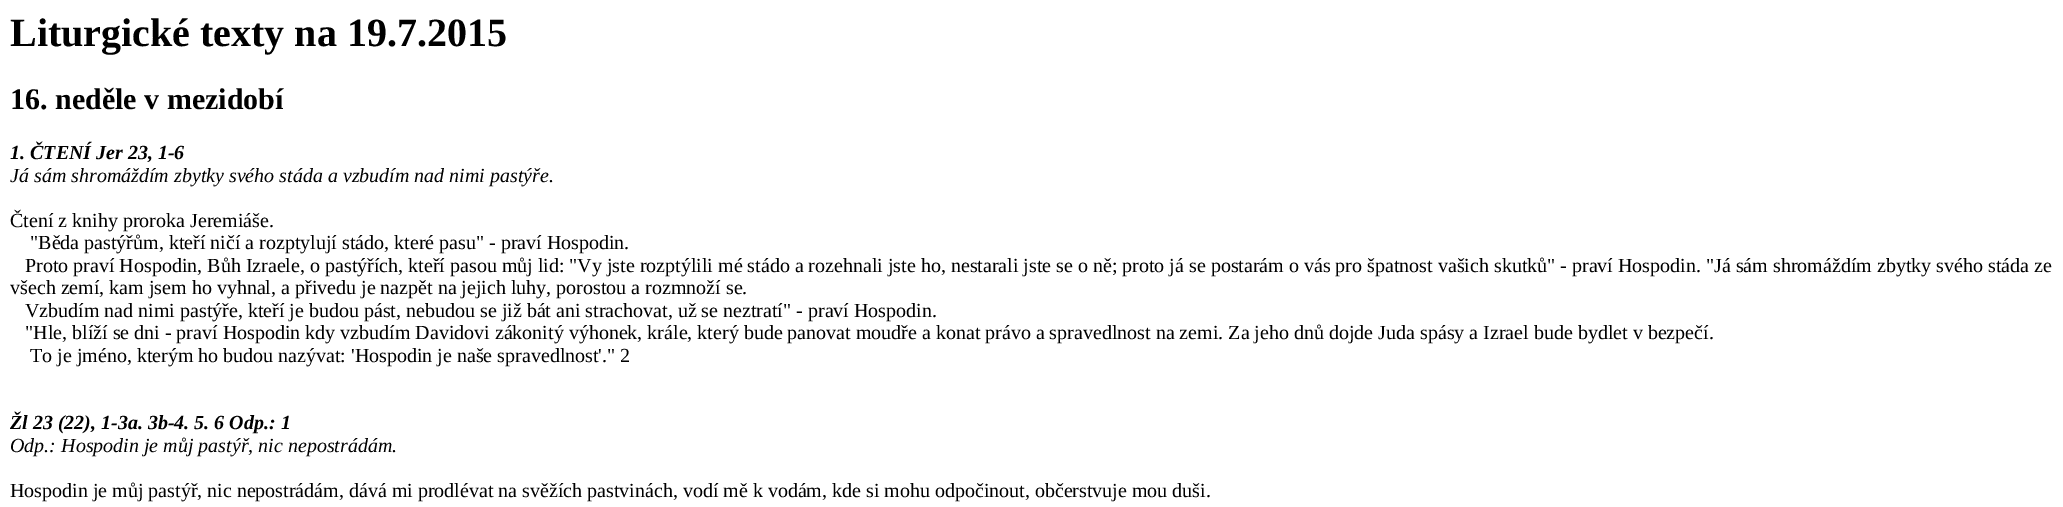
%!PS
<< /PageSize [2063 507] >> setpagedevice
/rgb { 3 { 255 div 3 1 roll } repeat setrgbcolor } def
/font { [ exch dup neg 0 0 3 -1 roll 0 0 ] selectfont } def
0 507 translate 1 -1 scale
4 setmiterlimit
255 255 255 rgb
0 0 2063 507 rectfill
/LiberationSerif-Bold 40 font
0 0 0 rgb
10 46 moveto (Liturgické texty na 19.7.2015) show
/LiberationSerif-Bold 30 font
10 109 moveto (16. neděle v mezidobí) show
/LiberationSerif-BoldItalic 20 font
10 159 moveto (1. ČTENÍ Jer 23, 1-6) show
/LiberationSerif-Italic 20 font
10 182 moveto (Já sám shromáždím zbytky svého stáda a vzbudím nad nimi pastýře.) show
/LiberationSerif-Regular 20 font
[
  [(Čtení z knihy proroka Jeremiáše.) 10 227]
  [("Běda pastýřům, kteří ničí a rozptylují stádo, které pasu" - praví Hospodin.) 30 249]
  [(Proto praví Hospodin, Bůh Izraele, o pastýřích, kteří pasou můj lid: "Vy jste rozptýlili mé stádo a rozehnali jste ho, nestarali jste se o ně; proto já se postarám o vás pro špatnost vašich skutků" - praví Hospodin. "Já sám shromáždím zbytky svého stáda ze) 25 272]
  [(všech zemí, kam jsem ho vyhnal, a přivedu je nazpět na jejich luhy, porostou a rozmnoží se.) 10 294]
  [(Vzbudím nad nimi pastýře, kteří je budou pást, nebudou se již bát ani strachovat, už se neztratí" - praví Hospodin.) 25 317]
  [("Hle, blíží se dni - praví Hospodin kdy vzbudím Davidovi zákonitý výhonek, krále, který bude panovat moudře a konat právo a spravedlnost na zemi. Za jeho dnů dojde Juda spásy a Izrael bude bydlet v bezpečí.) 25 339]
  [(To je jméno, kterým ho budou nazývat: 'Hospodin je naše spravedlnost'." 2) 30 362]
] { aload pop moveto show } forall
/LiberationSerif-BoldItalic 20 font
10 429 moveto (Žl 23 \(22\), 1-3a. 3b-4. 5. 6 Odp.: 1) show
/LiberationSerif-Italic 20 font
10 452 moveto (Odp.: Hospodin je můj pastýř, nic nepostrádám.) show
/LiberationSerif-Regular 20 font
10 497 moveto (Hospodin je můj pastýř, nic nepostrádám, dává mi prodlévat na svěžích pastvinách, vodí mě k vodám, kde si mohu odpočinout, občerstvuje mou duši.) show
showpage
